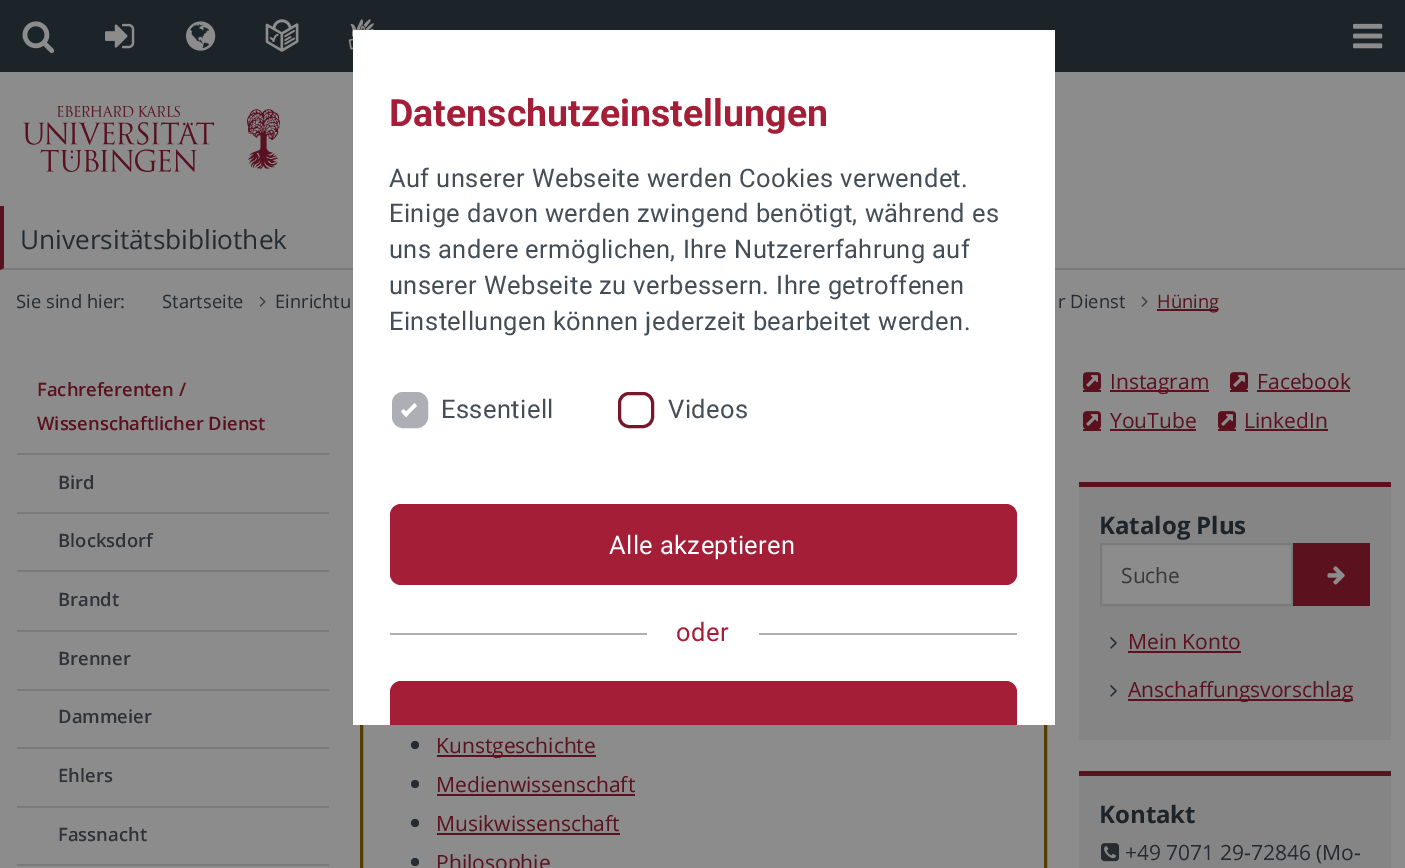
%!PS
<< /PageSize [1405 868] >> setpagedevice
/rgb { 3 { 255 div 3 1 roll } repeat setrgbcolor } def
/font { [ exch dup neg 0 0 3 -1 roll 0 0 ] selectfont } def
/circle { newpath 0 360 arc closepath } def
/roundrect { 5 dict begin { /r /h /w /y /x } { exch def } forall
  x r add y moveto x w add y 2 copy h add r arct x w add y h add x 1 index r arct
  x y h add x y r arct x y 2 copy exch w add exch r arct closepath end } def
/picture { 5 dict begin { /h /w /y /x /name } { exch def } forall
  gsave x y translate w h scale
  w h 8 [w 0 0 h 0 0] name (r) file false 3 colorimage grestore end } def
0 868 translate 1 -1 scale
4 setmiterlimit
140 140 140 rgb
0 0 1405 868 rectfill
28 36 41 rgb
0 0 1405 72 rectfill
(img/5.rgb) 348 19 26 31 picture
122 122 122 rgb
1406 270 moveto 0 270 lineto 4 268 lineto 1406 268 lineto closepath fill
84 62 0 rgb
3 setlinewidth
361.5 363.5 684 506 rectstroke
255 255 255 rgb
353 30 702 695 rectfill
173 175 181 rgb
393.5 393.5 33 33 9.5 roundrect gsave fill grestore
stroke
255 255 255 rgb
403.5 414 moveto 414.5 403 lineto 417 406 lineto 406 417 lineto closepath fill
401 411.5 moveto 403.5 409 lineto 408.5 414 lineto 406 417 lineto closepath fill
122 22 41 rgb
619.5 393.5 33 33 9.5 roundrect stroke
165 30 55 rgb
390 504 627 81 11 roundrect fill
173 175 181 rgb
390 633 257 2 rectfill
759 633 258 2 rectfill
165 30 55 rgb
401 681 moveto 1006 681 lineto 1012 681 1017 686 1017 692 curveto 1017 725 lineto 390 725 lineto 390 692 lineto 390 686 395 681 401 681 curveto closepath fill
(img/1.rgb) 22 21 33 33 picture
(img/2.rgb) 105 23 30 26 picture
(img/3.rgb) 186 21 30 30 picture
(img/4.rgb) 265 19 34 33 picture
(img/6.rgb) 1353 23 30 26 picture
(img/7.rgb) 23 105 257 67 picture
91 17 30 rgb
0 270 moveto 0 206 lineto 4 206 lineto 4 268 lineto closepath fill
(img/8.rgb) 259 296 7 11 picture
(img/8.rgb) 1141 296 7 11 picture
[
  [1157 309 61 2 91 17 30]
  [17 453 312 2 122 122 122]
  [17 512 312 2 122 122 122]
  [17 570 312 2 122 122 122]
  [17 630 312 2 122 122 122]
  [17 689 312 2 122 122 122]
  [17 747 312 2 122 122 122]
  [17 806 312 2 122 122 122]
  [17 864 312 2 122 122 122]
] { aload pop rgb rectfill } forall
37 43 48 rgb
415 745 4 circle fill
91 17 30 rgb
437 755 159 2 rectfill
37 43 48 rgb
415 784 4 circle fill
91 17 30 rgb
437 794 198 2 rectfill
37 43 48 rgb
415 823 4 circle fill
91 17 30 rgb
437 833 183 2 rectfill
37 43 48 rgb
415 862 4 circle fill
(img/9.rgb) 1083 372 18 18 picture
91 17 30 rgb
1110 390 99 2 rectfill
1083 390 18 2 rectfill
(img/9.rgb) 1230 372 18 18 picture
1257 390 93 2 rectfill
1230 390 18 2 rectfill
(img/9.rgb) 1083 411 18 18 picture
1110 429 86 2 rectfill
1083 429 18 2 rectfill
(img/9.rgb) 1218 411 18 18 picture
[
  [1245 429 83 2 91 17 30]
  [1218 429 18 2 91 17 30]
  [1079 487 312 253 133 133 133]
  [1079 482 312 5 91 17 30]
] { aload pop rgb rectfill } forall
140 140 140 rgb
1101 544 moveto 1292 544 lineto 1292 605 lineto 1101 605 lineto closepath gsave fill grestore
122 122 122 rgb
2 setlinewidth
stroke
91 17 30 rgb
1293 543 77 63 rectfill
(img/10.rgb) 1327 566 18 19 picture
(img/11.rgb) 1110 637 7 12 picture
1128 651 113 2 rectfill
(img/11.rgb) 1110 685 7 12 picture
[
  [1128 699 225 2 91 17 30]
  [1079 776 312 92 133 133 133]
  [1079 771 312 5 91 17 30]
] { aload pop rgb rectfill } forall
(img/12.rgb) 1101 843 18 19 picture
/Roboto-Bold 37.5 font
165 30 55 rgb
389 126 moveto (Datenschutzeinstellungen) show
/Roboto-Regular 25.5 font
68 78 87 rgb
389 187 moveto 0.4 0 (Auf unserer Webseite werden Cookies verwendet.) ashow
389 222 moveto 0.4 0 (Einige davon werden zwingend benötigt, während es) ashow
389 258 moveto 0.4 0 (uns andere ermöglichen, Ihre Nutzererfahrung auf) ashow
389 294 moveto 0.4 0 (unserer Webseite zu verbessern. Ihre getroffenen) ashow
389 330 moveto 0.4 0 (Einstellungen können jederzeit bearbeitet werden.) ashow
441 418 moveto 0.4 0 (Essentiell) ashow
668 418 moveto 0.4 0 (Videos) ashow
255 255 255 rgb
609 554 moveto 0.4 0 (Alle akzeptieren) ashow
165 30 55 rgb
676 641 moveto 0.4 0 (oder) ashow
/OpenSans-Regular 26.25 font
37 43 48 rgb
20 249 moveto (Universitätsbibliothek) show
/OpenSans-Regular 18.4 font
[
  [(Sie sind hier:) 16 308]
  [(Startseite) 162 308]
  [(Einrichtu) 275 308]
  [(r Dienst) 1058 308]
] { aload pop moveto show } forall
91 17 30 rgb
1157 308 moveto (Hüning) show
/OpenSans-SemiBold 18.4 font
37 396 moveto (Fachreferenten /) show
37 430 moveto (Wissenschaftlicher Dienst) show
47 51 56 rgb
[
  [(Bird) 58 489]
  [(Blocksdorf) 58 547]
  [(Brandt) 58 606]
  [(Brenner) 58 665]
  [(Dammeier) 58 723]
  [(Ehlers) 58 782]
  [(Fassnacht) 58 841]
] { aload pop moveto show } forall
/OpenSans-Regular 21 font
91 17 30 rgb
[
  [(Kunstgeschichte) 436 753]
  [(Medienwissenschaft) 436 792]
  [(Musikwissenschaft) 436 831]
  [(Philosophie) 436 870]
  [(Instagram) 1110 389]
  [(Facebook) 1257 389]
  [(YouTube) 1110 428]
  [(LinkedIn) 1244 428]
] { aload pop moveto show } forall
/OpenSans-Bold 24 font
28 36 41 rgb
1099 534 moveto (Katalog Plus) show
/OpenSans-Regular 21 font
56 56 56 rgb
1121 583 moveto (Suche) show
91 17 30 rgb
1128 649 moveto (Mein Konto) show
1128 697 moveto (Anschaffungsvorschlag) show
/OpenSans-Bold 24 font
28 36 41 rgb
1099 823 moveto (Kontakt) show
/OpenSans-Regular 21 font
37 43 48 rgb
1125 860 moveto (+49 7071 29-72846 \(Mo-) show
showpage
